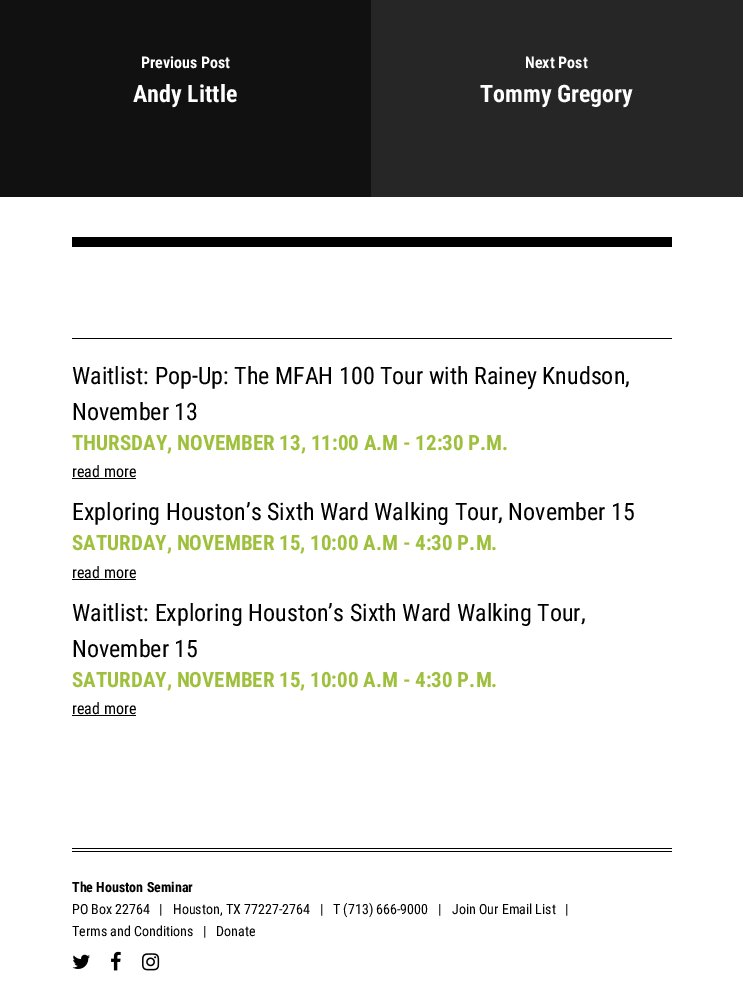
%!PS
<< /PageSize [743 996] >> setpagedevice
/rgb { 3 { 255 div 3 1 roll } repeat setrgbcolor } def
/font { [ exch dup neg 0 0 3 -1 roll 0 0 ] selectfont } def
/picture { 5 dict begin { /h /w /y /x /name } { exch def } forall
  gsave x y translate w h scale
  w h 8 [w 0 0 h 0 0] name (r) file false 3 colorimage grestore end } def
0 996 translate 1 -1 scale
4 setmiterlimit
255 255 255 rgb
0 0 743 996 rectfill
[
  [0 0 371 197 17 17 17]
  [371 0 372 197 38 38 38]
  [72 237 600 10 0 0 0]
  [72 848 600 1 0 0 0]
  [72 851 600 1 0 0 0]
  [72 338 600 1 0 0 0]
  [72 478 64 1 0 0 0]
  [72 579 64 1 0 0 0]
  [72 715 64 1 0 0 0]
] { aload pop rgb rectfill } forall
(img/1.rgb) 72 954 18 15 picture
(img/2.rgb) 111 951 10 20 picture
(img/3.rgb) 142 953 18 18 picture
/RobotoCondensed-Bold 16 font
255 255 255 rgb
141 68 moveto (Previous Post) show
/RobotoCondensed-Bold 24 font
133 102 moveto (Andy Little) show
/RobotoCondensed-Bold 16 font
525 68 moveto (Next Post) show
/RobotoCondensed-Bold 24 font
480 102 moveto (Tommy Gregory) show
/RobotoCondensed-Regular 24 font
0 0 0 rgb
72 384 moveto (Waitlist: Pop-Up: The MFAH 100 Tour with Rainey Knudson,) show
72 420 moveto (November 13) show
/RobotoCondensed-Bold 21 font
159 192 61 rgb
72 450 moveto (THURSDAY, NOVEMBER 13, 11:00 A.M - 12:30 P.M.) show
/RobotoCondensed-Regular 16 font
0 0 0 rgb
72 477 moveto (read more) show
/RobotoCondensed-Regular 24 font
72 520 moveto (Exploring Houston’s Sixth Ward Walking Tour, November 15) show
/RobotoCondensed-Bold 21 font
159 192 61 rgb
72 550 moveto (SATURDAY, NOVEMBER 15, 10:00 A.M - 4:30 P.M.) show
/RobotoCondensed-Regular 16 font
0 0 0 rgb
72 578 moveto (read more) show
/RobotoCondensed-Regular 24 font
72 621 moveto (Waitlist: Exploring Houston’s Sixth Ward Walking Tour,) show
72 657 moveto (November 15) show
/RobotoCondensed-Bold 21 font
159 192 61 rgb
72 687 moveto (SATURDAY, NOVEMBER 15, 10:00 A.M - 4:30 P.M.) show
/RobotoCondensed-Regular 16 font
0 0 0 rgb
72 714 moveto (read more) show
/RobotoCondensed-Bold 14 font
72 892 moveto (The Houston Seminar) show
/RobotoCondensed-Regular 14 font
[
  [(PO Box 22764) 72 914]
  [(|) 159 914]
  [(Houston, TX 77227-2764) 173 914]
  [(|) 320 914]
  [(T \(713\) 666-9000) 333 914]
  [(|) 438 914]
  [(Join Our Email List) 452 914]
  [(|) 565 914]
  [(Terms and Conditions) 72 936]
  [(|) 203 936]
  [(Donate) 216 936]
] { aload pop moveto show } forall
showpage
